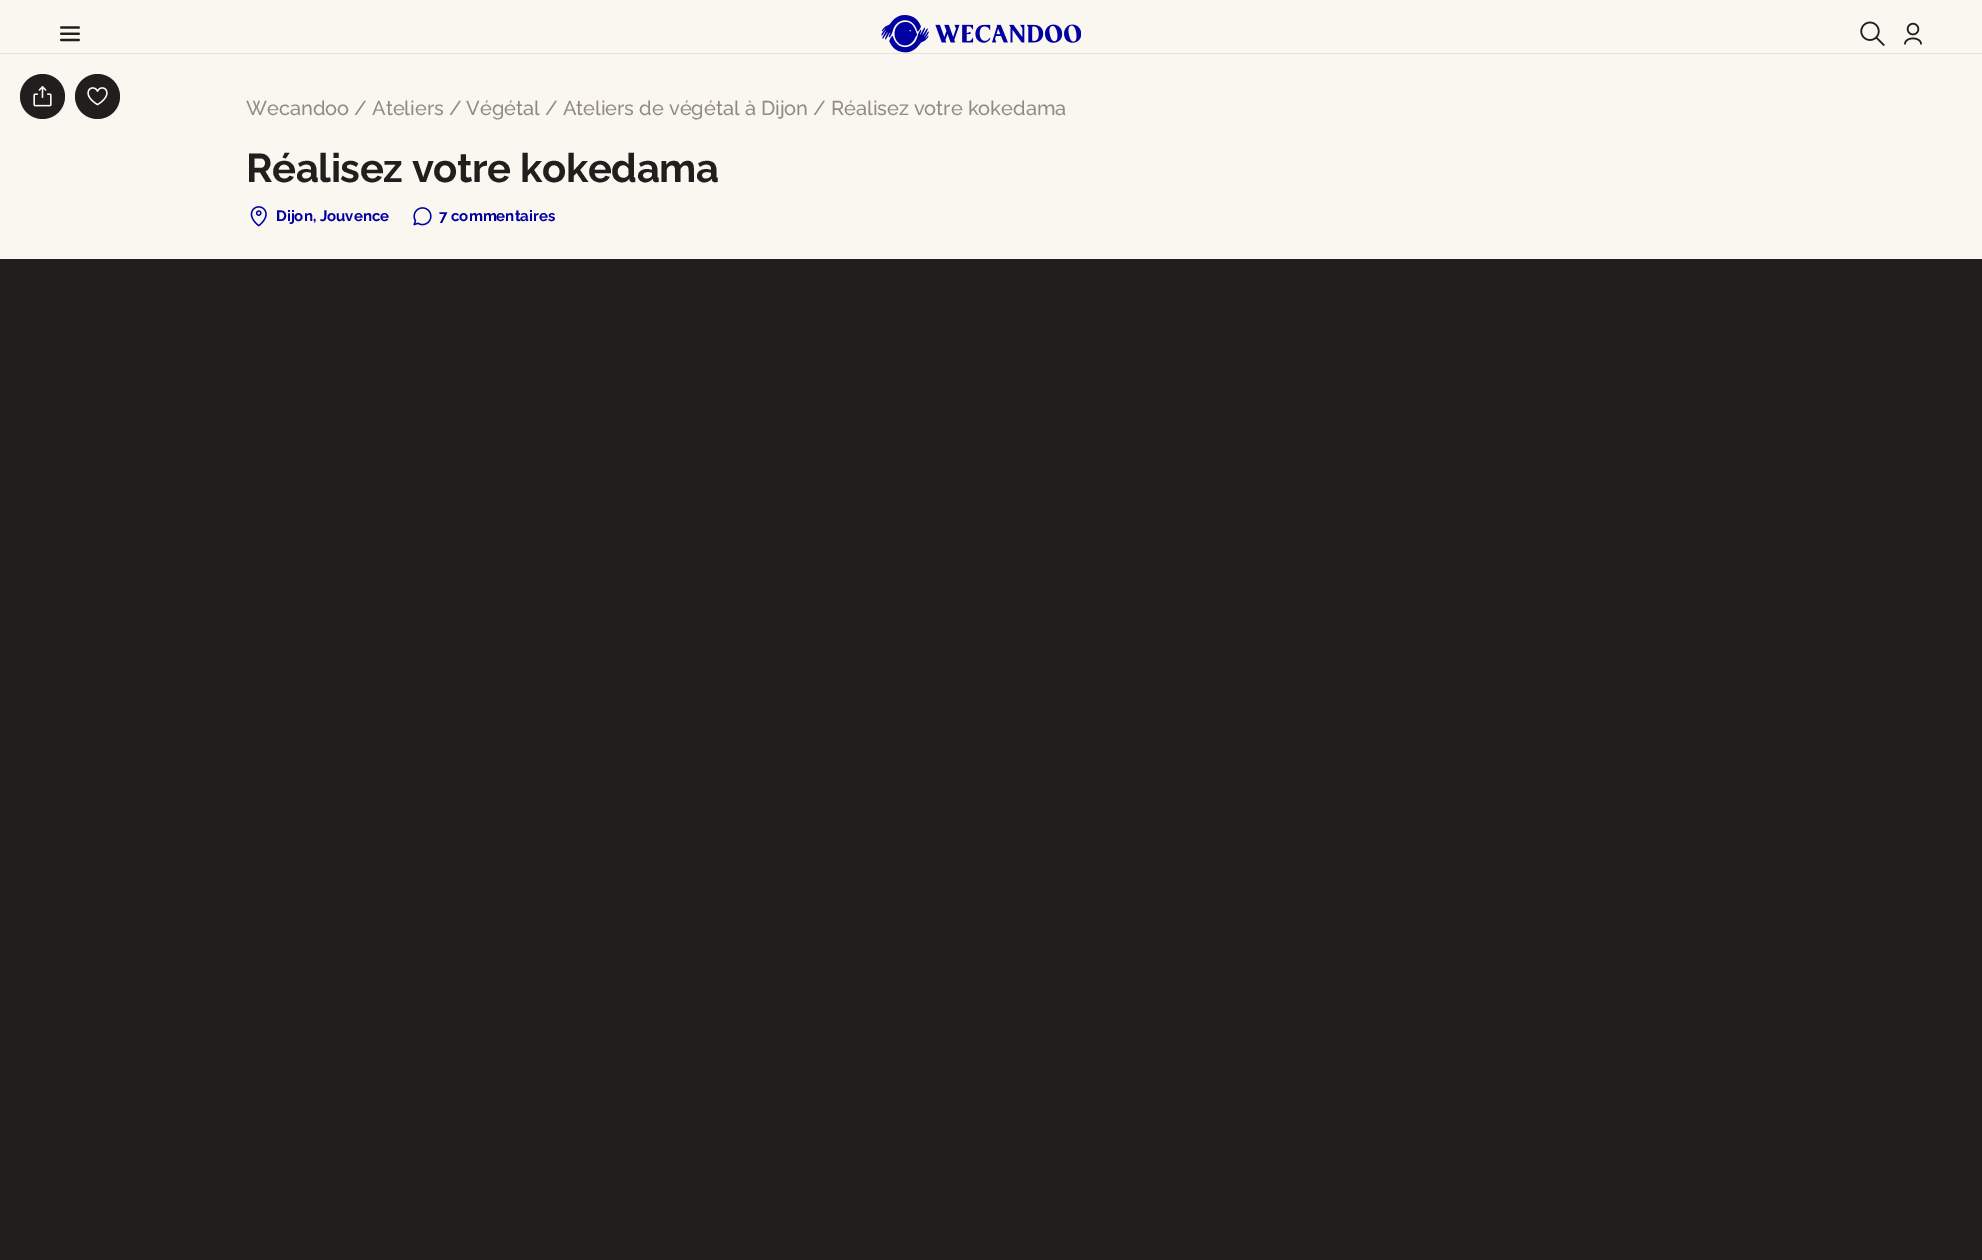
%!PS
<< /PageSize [1982 1260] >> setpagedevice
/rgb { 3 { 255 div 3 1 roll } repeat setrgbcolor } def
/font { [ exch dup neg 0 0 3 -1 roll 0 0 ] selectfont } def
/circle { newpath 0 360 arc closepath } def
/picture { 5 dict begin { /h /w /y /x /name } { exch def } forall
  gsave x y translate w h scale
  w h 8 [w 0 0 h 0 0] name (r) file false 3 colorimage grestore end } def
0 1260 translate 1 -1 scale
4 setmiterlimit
250 246 240 rgb
0 0 1982 1260 rectfill
233 226 215 rgb
0 53 1982 1 rectfill
(img/1.rgb) 60 26 20 16 picture
(img/2.rgb) 881 15 200 38 picture
(img/3.rgb) 1860 21 25 25 picture
(img/4.rgb) 1904 22 18 23 picture
32 31 29 rgb
42.5 96.5 22.5 circle fill
(img/5.rgb) 33 86 19 21 picture
97.5 96.5 22.5 circle fill
(img/6.rgb) 87 87 21 19 picture
(img/7.rgb) 250 206 17 21 picture
(img/8.rgb) 413 207 19 19 picture
0 259 1982 1001 rectfill
/Raleway-Medium 20 font
144 140 133 rgb
246 115 moveto (Wecandoo / Ateliers / Végétal / Ateliers de végétal à Dijon / Réalisez votre kokedama) show
/Raleway-Bold 40 font
32 31 29 rgb
246 182 moveto -0.4 0 (Réalisez votre kokedama) ashow
/Raleway-Bold 15 font
0 0 162 rgb
276 221 moveto (Dijon, Jouvence) show
439 221 moveto (7 commentaires) show
showpage
